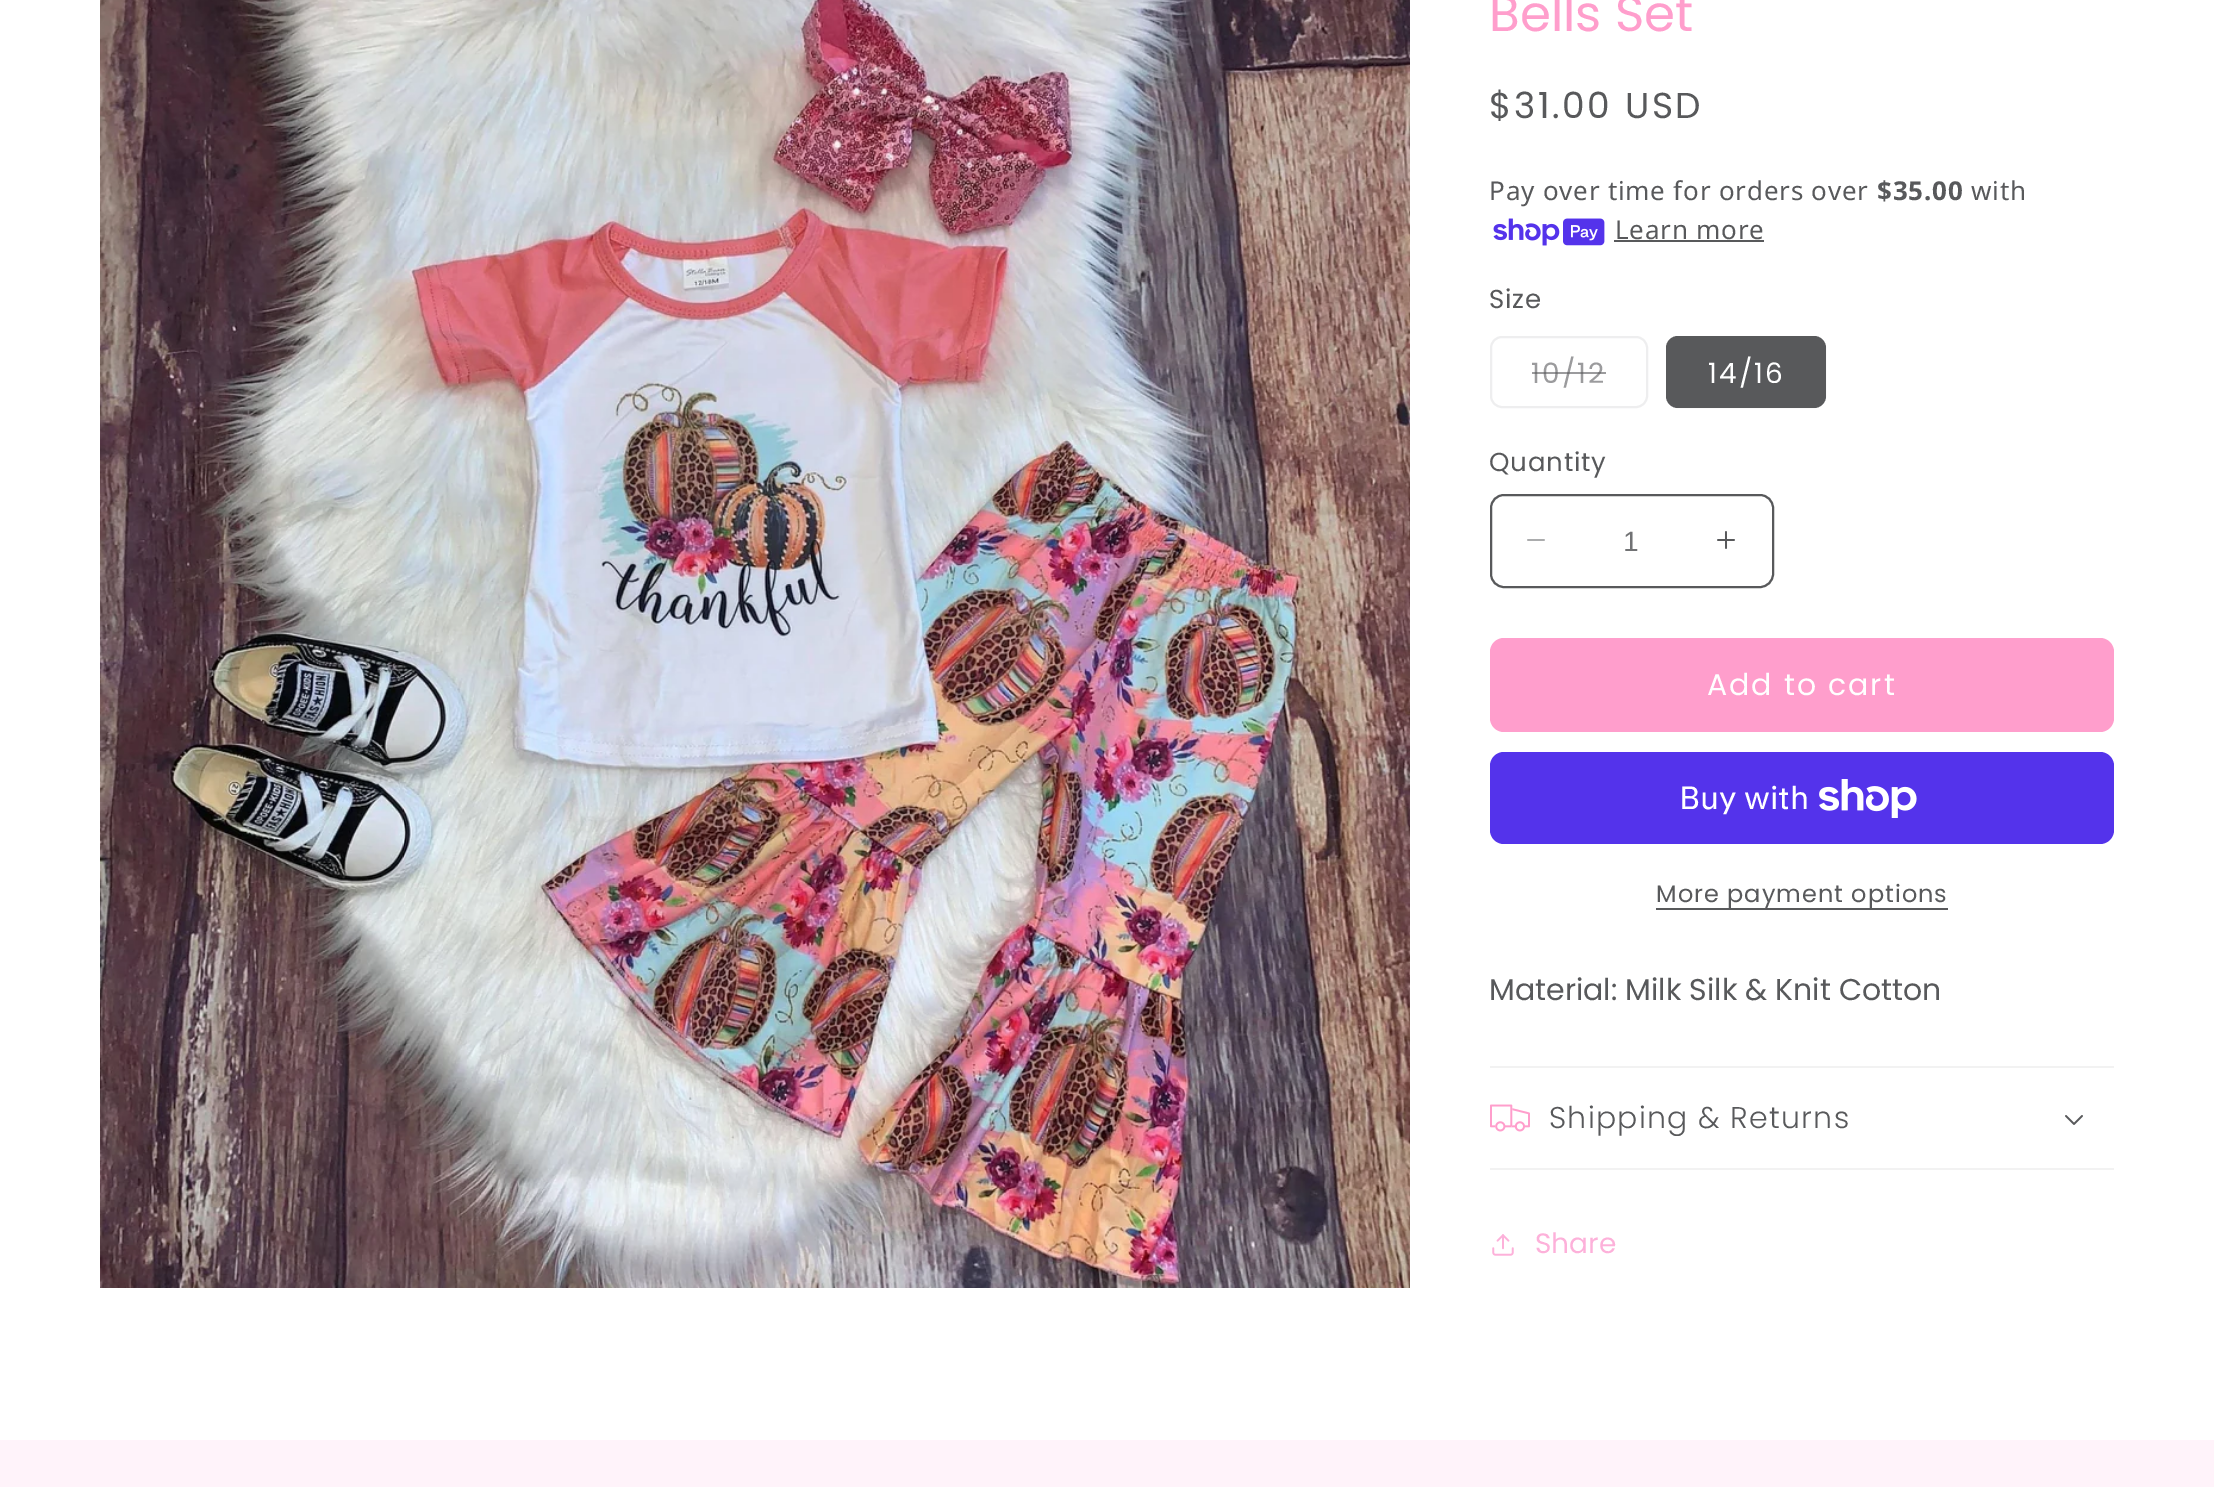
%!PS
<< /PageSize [2214 1487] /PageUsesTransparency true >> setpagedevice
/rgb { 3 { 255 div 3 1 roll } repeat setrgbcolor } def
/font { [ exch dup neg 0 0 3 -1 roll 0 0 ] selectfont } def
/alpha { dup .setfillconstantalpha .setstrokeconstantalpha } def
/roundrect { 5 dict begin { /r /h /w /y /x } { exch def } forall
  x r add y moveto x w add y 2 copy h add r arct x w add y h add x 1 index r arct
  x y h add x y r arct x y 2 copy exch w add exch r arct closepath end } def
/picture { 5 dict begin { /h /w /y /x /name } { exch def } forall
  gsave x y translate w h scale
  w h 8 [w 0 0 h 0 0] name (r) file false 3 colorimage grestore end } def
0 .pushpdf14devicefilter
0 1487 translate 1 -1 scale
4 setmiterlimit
255 255 255 rgb
0 0 2214 1487 rectfill
(img/1.rgb) 100 0 1310 1288 picture
(img/2.rgb) 1493 218 112 28 picture
88 89 91 rgb
1614 240 150 2 rectfill
238 238 239 rgb
2 setlinewidth
1491 337 156 70 11 roundrect stroke
88 89 91 rgb
1666 336 160 72 12 roundrect fill
0.1 alpha
1667 337 158 70 11 roundrect stroke
1 alpha
(img/3.rgb) 1527 539 18 2 picture
(img/4.rgb) 1717 531 18 18 picture
1491 495 282 92 13 roundrect stroke
255 158 204 rgb
1490 638 624 94 14 roundrect fill
84 51 235 rgb
1490 752 624 92 14 roundrect fill
(img/5.rgb) 1819 779 98 39 picture
[
  [1656 908 292 2 88 89 91]
  [1490 1066 624 2 242 242 242]
  [1490 1168 624 2 242 242 242]
] { aload pop rgb rectfill } forall
(img/6.rgb) 1490 1104 40 28 picture
(img/7.rgb) 2065 1115 18 10 picture
(img/8.rgb) 1492 1234 22 22 picture
255 243 250 rgb
0 1440 2214 47 rectfill
/Poppins-Regular 50 font
255 158 204 rgb
1489 31 moveto (Bells Set) show
/Poppins-Regular 36 font
88 89 91 rgb
1489 118 moveto 2.6 0 ($31.00 USD) ashow
/NotoSans-Regular 26 font
1489 200 moveto 0.8 0 (Pay over time for orders over) ashow
/NotoSans-Bold 26 font
1877 200 moveto 0.8 0 ($35.00) ashow
/NotoSans-Regular 26 font
1971 200 moveto 0.8 0 (with) ashow
1615 239 moveto 0.8 0 (Learn more) ashow
/Poppins-Regular 26 font
1489 308 moveto 0.8 0 (Size) ashow
/Poppins-Regular 28 font
155 155 157 rgb
1531 383 moveto 2 0 (10/12) ashow
0.6 alpha
88 89 91 rgb
1532 372 74 2 rectfill
1 alpha
255 255 255 rgb
1708 383 moveto 2 0 (14/16) ashow
/Poppins-Regular 26 font
88 89 91 rgb
1489 471 moveto 0.8 0 (Quantity) ashow
/LiberationSans-Regular 28 font
113 114 116 rgb
1623 551 moveto (1) show
/Poppins-Regular 30 font
255 255 255 rgb
1707 695 moveto 2 0 (Add to cart) ashow
/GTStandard-Regular 32 font
1679 809 moveto (Buy with) show
/Poppins-Regular 24 font
88 89 91 rgb
1656 902 moveto 1 0 (More payment options) ashow
/Poppins-Regular 30 font
1489 1000 moveto (Material: Milk Silk & Knit Cotton) show
/Poppins-Light 30 font
1549 1128 moveto 1.25 0 (Shipping & Returns) ashow
/Poppins-Regular 28 font
253 177 218 rgb
1535 1253 moveto (Share) show
.poppdf14devicefilter showpage
